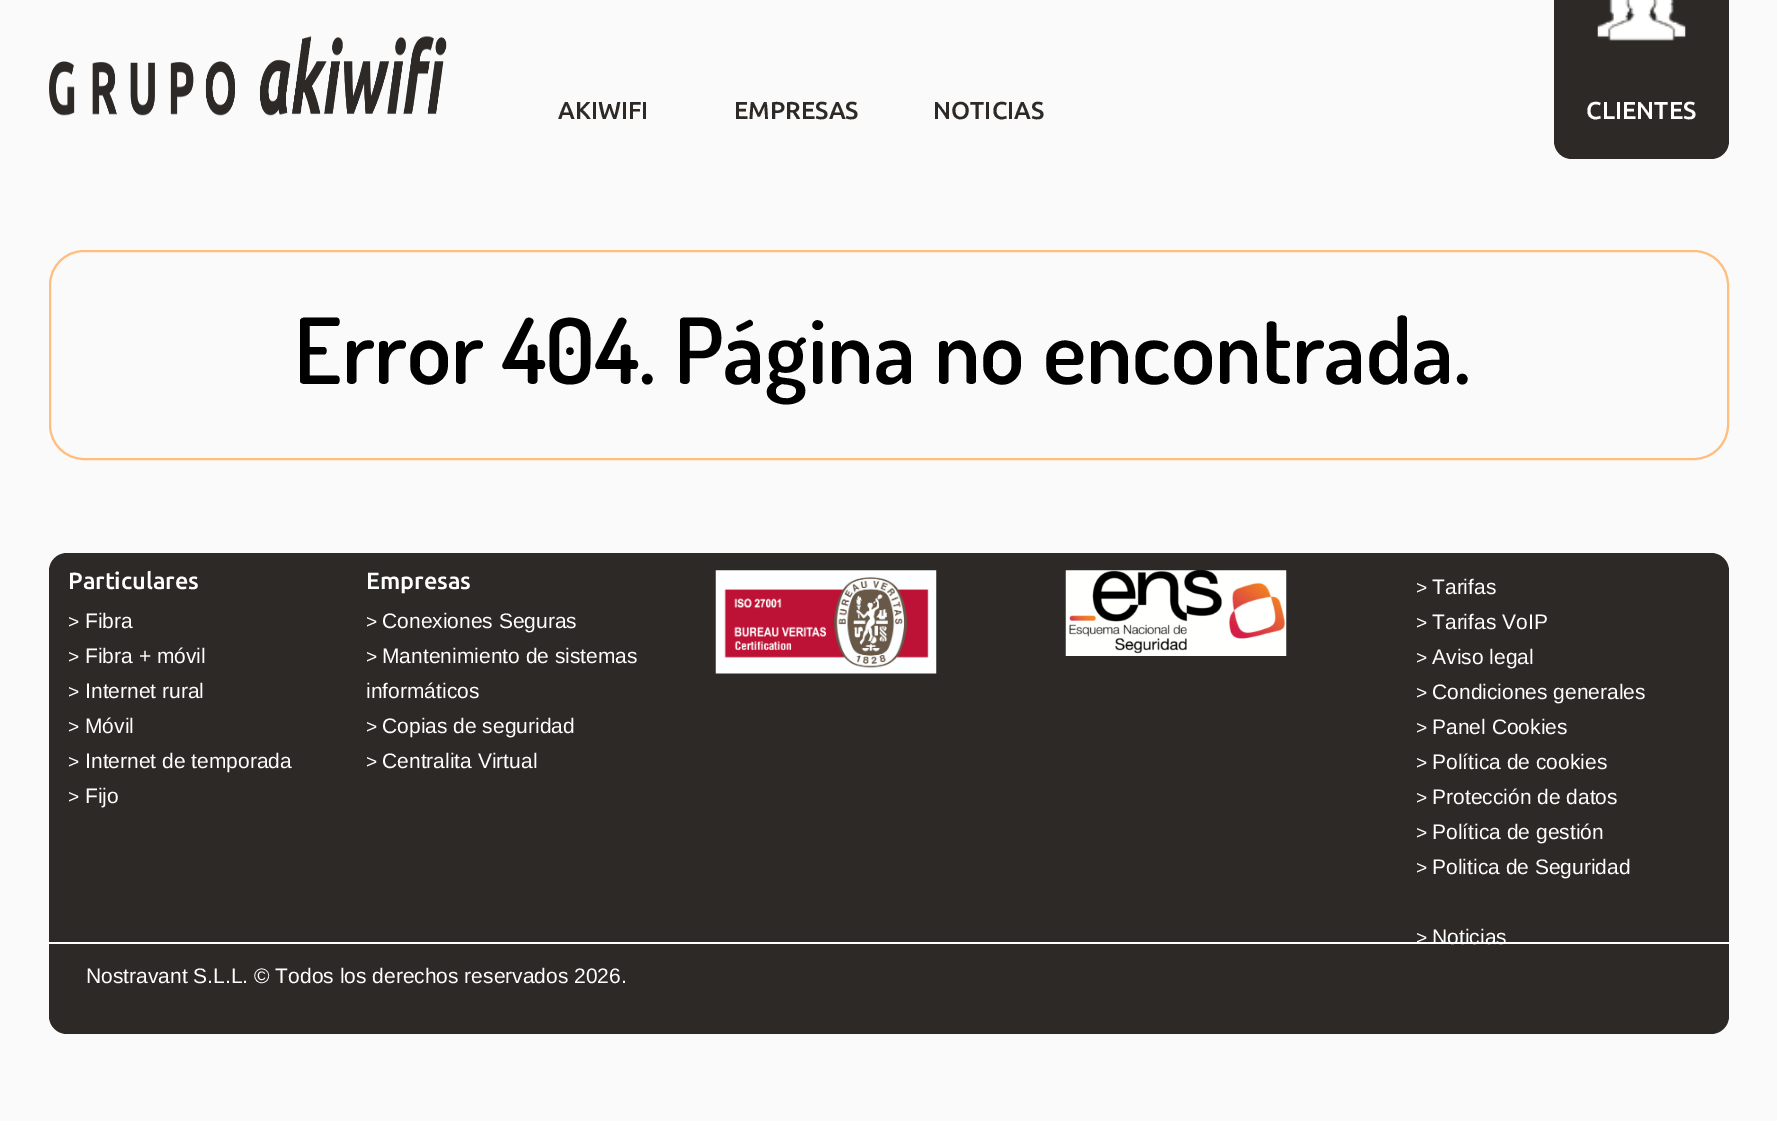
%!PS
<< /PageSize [1777 1121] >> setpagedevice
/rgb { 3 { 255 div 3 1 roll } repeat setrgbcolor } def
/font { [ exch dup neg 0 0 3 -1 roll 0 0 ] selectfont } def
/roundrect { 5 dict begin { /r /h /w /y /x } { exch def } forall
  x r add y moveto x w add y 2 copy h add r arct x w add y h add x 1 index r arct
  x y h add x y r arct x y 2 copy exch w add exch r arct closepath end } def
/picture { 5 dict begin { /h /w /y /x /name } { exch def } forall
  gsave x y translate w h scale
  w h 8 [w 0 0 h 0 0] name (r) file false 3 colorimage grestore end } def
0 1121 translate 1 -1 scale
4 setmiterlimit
250 250 250 rgb
0 0 1777 1121 rectfill
(img/1.rgb) 49 36 398 80 picture
45 41 38 rgb
1554 -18 moveto 1729 -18 lineto 1729 141 lineto 1729 151 1721 159 1711 159 curveto 1572 159 lineto 1562 159 1554 151 1554 141 curveto closepath fill
(img/2.rgb) 1597 0 89 41 picture
255 190 125 rgb
2 setlinewidth
50 251 1678 208 34 roundrect stroke
45 41 38 rgb
49 553 1680 481 18 roundrect fill
(img/3.rgb) 715 570 222 104 picture
(img/4.rgb) 1065 570 222 86 picture
255 255 255 rgb
49 942 1680 2 rectfill
/Ubuntu-Medium 24.5 font
45 41 38 rgb
[
  [(AKIWIFI) 558 119]
  [(EMPRESAS) 734 119]
  [(NOTICIAS) 933 119]
] { aload pop moveto show } forall
255 255 255 rgb
1586 119 moveto (CLIENTES) show
/Dosis-SemiBold 91 font
0 0 0 rgb
294 384 moveto (Error 404. Página no encontrada.) show
/Ubuntu-Medium 23.5 font
255 255 255 rgb
68 589 moveto (Particulares) show
/LiberationSans-Regular 19 font
68 628 moveto (>) show
/LiberationSans-Regular 21 font
85 628 moveto (Fibra) show
/LiberationSans-Regular 19 font
68 663 moveto (>) show
/LiberationSans-Regular 21 font
85 663 moveto (Fibra + móvil) show
/LiberationSans-Regular 19 font
68 698 moveto (>) show
/LiberationSans-Regular 21 font
85 698 moveto (Internet rural) show
/LiberationSans-Regular 19 font
68 733 moveto (>) show
/LiberationSans-Regular 21 font
85 733 moveto (Móvil) show
/LiberationSans-Regular 19 font
68 768 moveto (>) show
/LiberationSans-Regular 21 font
85 768 moveto (Internet de temporada) show
/LiberationSans-Regular 19 font
68 803 moveto (>) show
/LiberationSans-Regular 21 font
85 803 moveto (Fijo) show
/Ubuntu-Medium 23.5 font
366 589 moveto (Empresas) show
/LiberationSans-Regular 19 font
366 628 moveto (>) show
/LiberationSans-Regular 21 font
382 628 moveto (Conexiones Seguras) show
/LiberationSans-Regular 19 font
366 663 moveto (>) show
/LiberationSans-Regular 21 font
382 663 moveto (Mantenimiento de sistemas) show
366 698 moveto (informáticos) show
/LiberationSans-Regular 19 font
366 733 moveto (>) show
/LiberationSans-Regular 21 font
382 733 moveto (Copias de seguridad) show
/LiberationSans-Regular 19 font
366 768 moveto (>) show
/LiberationSans-Regular 21 font
382 768 moveto (Centralita Virtual) show
/LiberationSans-Regular 19 font
1416 594 moveto (>) show
/LiberationSans-Regular 21 font
1432 594 moveto (Tarifas) show
/LiberationSans-Regular 19 font
1416 629 moveto (>) show
/LiberationSans-Regular 21 font
1432 629 moveto (Tarifas VoIP) show
/LiberationSans-Regular 19 font
1416 664 moveto (>) show
/LiberationSans-Regular 21 font
1432 664 moveto (Aviso legal) show
/LiberationSans-Regular 19 font
1416 699 moveto (>) show
/LiberationSans-Regular 21 font
1432 699 moveto (Condiciones generales) show
/LiberationSans-Regular 19 font
1416 734 moveto (>) show
/LiberationSans-Regular 21 font
1432 734 moveto (Panel Cookies) show
/LiberationSans-Regular 19 font
1416 769 moveto (>) show
/LiberationSans-Regular 21 font
1432 769 moveto (Política de cookies) show
/LiberationSans-Regular 19 font
1416 804 moveto (>) show
/LiberationSans-Regular 21 font
1432 804 moveto (Protección de datos) show
/LiberationSans-Regular 19 font
1416 839 moveto (>) show
/LiberationSans-Regular 21 font
1432 839 moveto (Política de gestión) show
/LiberationSans-Regular 19 font
1416 874 moveto (>) show
/LiberationSans-Regular 21 font
1432 874 moveto (Politica de Seguridad) show
/LiberationSans-Regular 19 font
1416 944 moveto (>) show
/LiberationSans-Regular 21 font
1432 944 moveto (Noticias) show
86 983 moveto (Nostravant S.L.L. © Todos los derechos reservados 2026.) show
showpage
